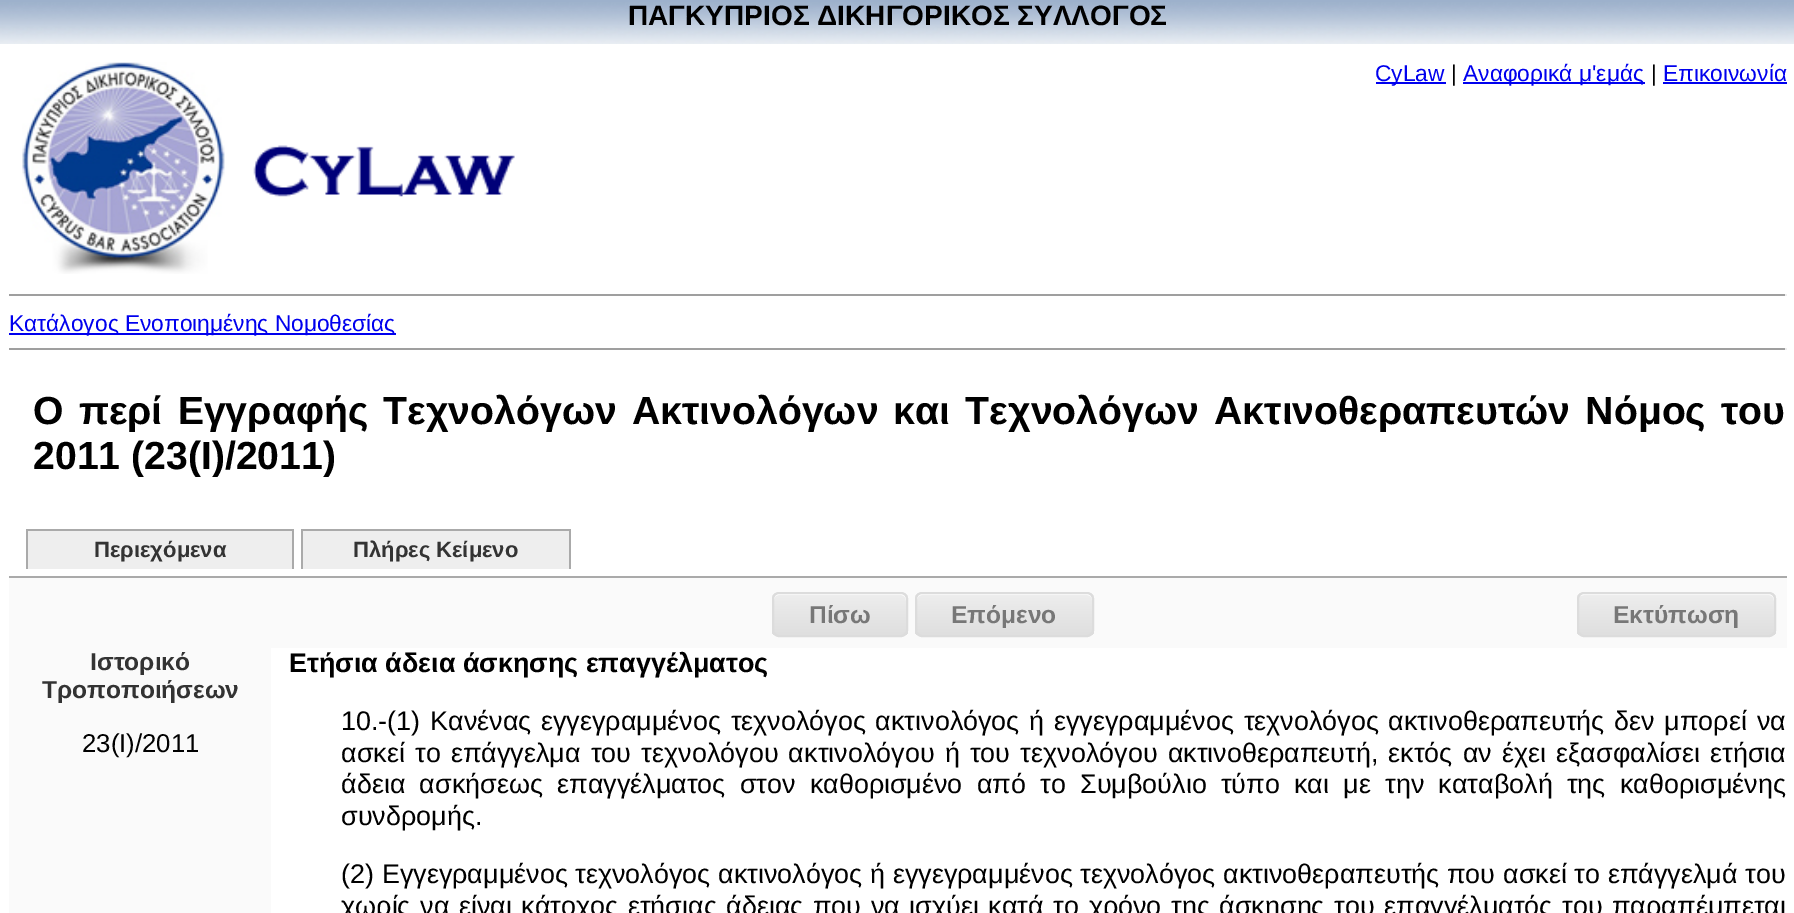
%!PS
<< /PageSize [1794 913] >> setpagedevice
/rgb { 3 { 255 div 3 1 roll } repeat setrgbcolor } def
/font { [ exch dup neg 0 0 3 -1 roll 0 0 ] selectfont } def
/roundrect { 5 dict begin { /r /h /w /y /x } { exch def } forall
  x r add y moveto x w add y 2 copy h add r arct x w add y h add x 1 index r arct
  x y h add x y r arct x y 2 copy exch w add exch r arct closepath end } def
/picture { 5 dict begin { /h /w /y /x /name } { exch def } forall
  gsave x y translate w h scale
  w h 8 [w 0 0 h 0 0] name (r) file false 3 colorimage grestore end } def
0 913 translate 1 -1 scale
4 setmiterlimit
255 255 255 rgb
0 0 1794 913 rectfill
(img/1.rgb) 0 0 1794 44 picture
(img/2.rgb) 22 62 203 212 picture
(img/3.rgb) 253 145 262 52 picture
[
  [1376 82 70 2 0 0 238]
  [1463 82 182 2 0 0 238]
  [1663 82 124 2 0 0 238]
  [9 294 1778 2 159 159 159]
  [1785 294 2 2 238 238 238]
  [9 333 387 2 0 0 238]
  [9 348 1778 2 159 159 159]
  [1785 348 2 2 238 238 238]
  [9 576 1778 2 170 170 170]
  [28 531 264 38 238 238 238]
  [26 529 268 2 170 170 170]
  [292 529 2 40 170 170 170]
  [26 529 2 40 170 170 170]
  [303 531 266 38 238 238 238]
  [301 529 270 2 170 170 170]
  [569 529 2 40 170 170 170]
  [301 529 2 40 170 170 170]
  [9 578 1778 70 250 250 250]
] { aload pop rgb rectfill } forall
gsave
772 592 136 45 7 roundrect clip newpath
gsave 772 593 moveto 908 593 lineto 908 635 lineto 772 635 lineto closepath clip newpath
<< /ShadingType 2 /ColorSpace /DeviceRGB /Coords [774 593 774 635] /Extend [true true] /Function << /FunctionType 3 /Domain [0 1] /Functions [<< /FunctionType 2 /Domain [0 1] /C0 [0.929 0.929 0.929] /C1 [0.929 0.929 0.929] /N 1 >> << /FunctionType 2 /Domain [0 1] /C0 [0.929 0.929 0.929] /C1 [0.875 0.875 0.875] /N 1 >>] /Bounds [0.05] /Encode [0 1 0 1] >> >> shfill grestore
grestore
255 255 255 rgb
779 595 moveto 901 595 lineto 908 595 906 606 906 611 curveto 906 633 lineto 907 632 907 631 907 630 curveto 907 598 lineto 907 595 905 593 902 593 curveto 779 593 lineto 776 593 774 595 774 598 curveto 774 600 lineto 774 597 776 595 779 595 curveto closepath fill
220 220 220 rgb
2 setlinewidth
773 593 134 43 6 roundrect stroke
gsave
915 592 179 45 7 roundrect clip newpath
gsave 915 593 moveto 1094 593 lineto 1094 635 lineto 915 635 lineto closepath clip newpath
<< /ShadingType 2 /ColorSpace /DeviceRGB /Coords [917 593 917 635] /Extend [true true] /Function << /FunctionType 3 /Domain [0 1] /Functions [<< /FunctionType 2 /Domain [0 1] /C0 [0.929 0.929 0.929] /C1 [0.929 0.929 0.929] /N 1 >> << /FunctionType 2 /Domain [0 1] /C0 [0.929 0.929 0.929] /C1 [0.875 0.875 0.875] /N 1 >>] /Bounds [0.05] /Encode [0 1 0 1] >> >> shfill grestore
grestore
255 255 255 rgb
922 595 moveto 1087 595 lineto 1090 595 1092 597 1092 600 curveto 1092 598 lineto 1092 595 1090 593 1087 593 curveto 922 593 lineto 919 593 917 595 917 598 curveto 917 600 lineto 917 597 919 595 922 595 curveto closepath fill
220 220 220 rgb
916 593 177 43 6 roundrect stroke
gsave
1577 592 199 45 7 roundrect clip newpath
gsave 1577 593 moveto 1776 593 lineto 1776 635 lineto 1577 635 lineto closepath clip newpath
<< /ShadingType 2 /ColorSpace /DeviceRGB /Coords [1579 593 1579 635] /Extend [true true] /Function << /FunctionType 3 /Domain [0 1] /Functions [<< /FunctionType 2 /Domain [0 1] /C0 [0.929 0.929 0.929] /C1 [0.929 0.929 0.929] /N 1 >> << /FunctionType 2 /Domain [0 1] /C0 [0.929 0.929 0.929] /C1 [0.875 0.875 0.875] /N 1 >>] /Bounds [0.05] /Encode [0 1 0 1] >> >> shfill grestore
grestore
255 255 255 rgb
1584 595 moveto 1769 595 lineto 1776 595 1774 606 1774 611 curveto 1774 633 lineto 1775 632 1775 631 1775 630 curveto 1775 598 lineto 1775 595 1773 593 1770 593 curveto 1584 593 lineto 1582 593 1579 595 1579 597 curveto 1580 596 1582 595 1584 595 curveto closepath fill
220 220 220 rgb
1578 593 197 43 6 roundrect stroke
250 250 250 rgb
9 648 262 265 rectfill
/LiberationSans-Bold 28 font
0 0 0 rgb
628 25 moveto (ΠΑΓΚΥΠΡΙΟΣ ΔΙΚΗΓΟΡΙΚΟΣ ΣΥΛΛΟΓΟΣ) show
/LiberationSans-Regular 22.75 font
0 0 238 rgb
1375 81 moveto (CyLaw) show
0 0 0 rgb
1451 81 moveto (|) show
0 0 238 rgb
1463 81 moveto (Αναφορικά μ'εμάς) show
0 0 0 rgb
1651 81 moveto (|) show
0 0 238 rgb
1663 81 moveto (Επικοινωνία) show
9 331 moveto (Κατάλογος Ενοποιημένης Νομοθεσίας) show
/LiberationSans-Bold 39.2 font
0 0 0 rgb
33 424 moveto 4.25 0 32 (Ο περί Εγγραφής Τεχνολόγων Ακτινολόγων και Τεχνολόγων Ακτινοθεραπευτών Νόμος του) widthshow
33 469 moveto (2011 \(23\(I\)/2011\)) show
/LiberationSans-Bold 22 font
51 51 51 rgb
94 557 moveto (Περιεχόμενα) show
353 557 moveto (Πλήρες Κείμενο) show
/LiberationSans-Bold 24.5 font
119 119 119 rgb
[
  [(Πίσω) 809 623]
  [(Επόμενο) 951 623]
  [(Εκτύπωση) 1613 623]
] { aload pop moveto show } forall
51 51 51 rgb
90 670 moveto (Ιστορικό) show
42 698 moveto (Τροποποιήσεων) show
/LiberationSans-Regular 25.75 font
0 0 0 rgb
82 752 moveto (23\(I\)/2011) show
/LiberationSans-Bold 26.95 font
289 672 moveto (Ετήσια άδεια άσκησης επαγγέλματος) show
/LiberationSans-Regular 26.95 font
341 730 moveto 2.25 0 32 (10.-\(1\) Κανένας εγγεγραμμένος τεχνολόγος ακτινολόγος ή εγγεγραμμένος τεχνολόγος ακτινοθεραπευτής δεν μπορεί να) widthshow
341 762 moveto 2.75 0 32 (ασκεί το επάγγελμα του τεχνολόγου ακτινολόγου ή του τεχνολόγου ακτινοθεραπευτή, εκτός αν έχει εξασφαλίσει ετήσια) widthshow
341 793 moveto 6.75 0 32 (άδεια ασκήσεως επαγγέλματος στον καθορισμένο από το Συμβούλιο τύπο και με την καταβολή της καθορισμένης) widthshow
341 825 moveto (συνδρομής.) show
341 883 moveto 0.25 0 32 (\(2\) Εγγεγραμμένος τεχνολόγος ακτινολόγος ή εγγεγραμμένος τεχνολόγος ακτινοθεραπευτής που ασκεί το επάγγελμά του) widthshow
341 915 moveto 2.1 0 32 (χωρίς να είναι κάτοχος ετήσιας άδειας που να ισχύει κατά το χρόνο της άσκησης του επαγγέλματός του παραπέμπεται) widthshow
showpage
